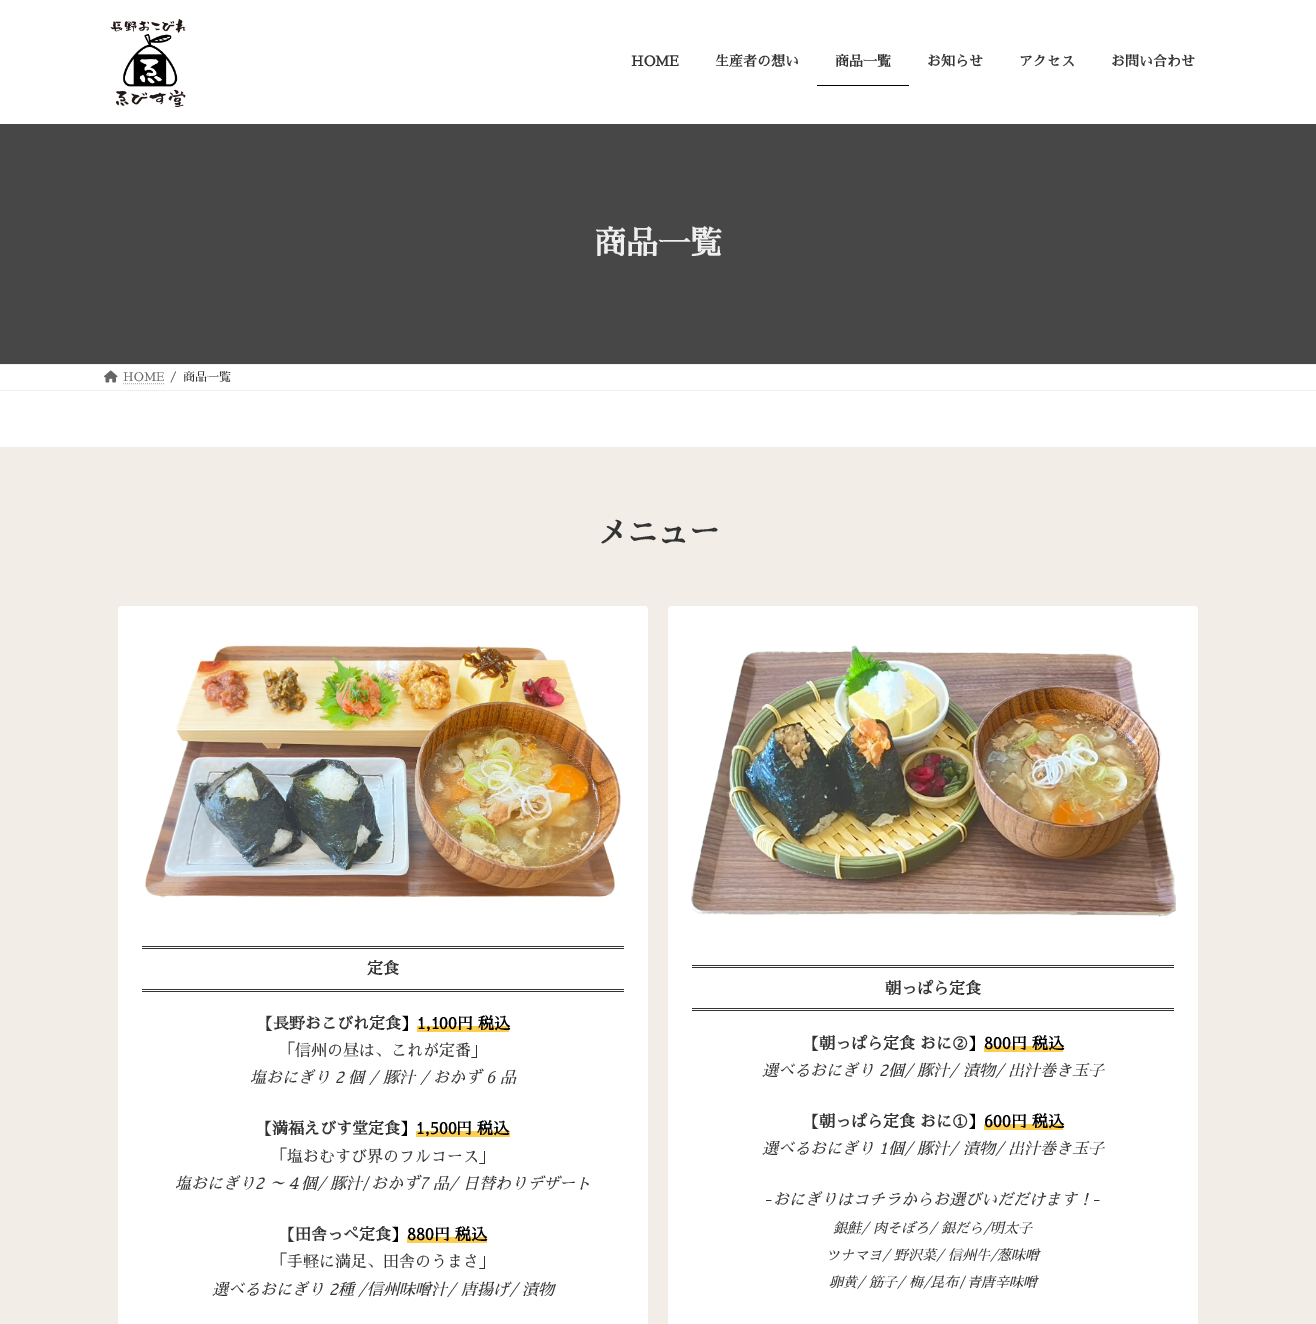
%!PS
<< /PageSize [1316 1324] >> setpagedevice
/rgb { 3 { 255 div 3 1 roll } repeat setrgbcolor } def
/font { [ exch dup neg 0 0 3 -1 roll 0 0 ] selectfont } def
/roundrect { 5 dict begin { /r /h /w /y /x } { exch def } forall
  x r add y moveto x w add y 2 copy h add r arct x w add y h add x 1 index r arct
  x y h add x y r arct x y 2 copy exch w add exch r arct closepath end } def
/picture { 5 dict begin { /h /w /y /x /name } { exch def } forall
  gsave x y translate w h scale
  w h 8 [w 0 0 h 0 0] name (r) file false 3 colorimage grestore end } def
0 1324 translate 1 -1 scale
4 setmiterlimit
255 255 255 rgb
0 0 1316 1324 rectfill
(img/1.rgb) 110 19 76 89 picture
[
  [817 85 92 1 0 0 0]
  [0 124 1316 240 71 71 71]
  [0 364 1316 1 240 240 240]
  [0 390 1316 1 240 240 240]
] { aload pop rgb rectfill } forall
(img/2.rgb) 104 370 14 13 picture
179 179 179 rgb
[1 1] 0 setdash
123 383.5 moveto 164 383.5 lineto stroke
242 237 230 rgb
0 447 1316 877 rectfill
255 255 255 rgb
118 606 530 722 4 roundrect fill
(img/3.rgb) 145 645 476 253 picture
[
  [142 946 482 1 51 51 51]
  [142 948 482 1 51 51 51]
  [142 989 482 1 51 51 51]
  [142 991 482 1 51 51 51]
  [417 1026 92 6 253 206 77]
  [416 1131 94 6 253 206 77]
  [407 1237 80 6 253 206 77]
] { aload pop rgb rectfill } forall
255 255 255 rgb
668 606 530 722 4 roundrect fill
(img/4.rgb) 691 645 485 272 picture
[
  [692 965 482 1 51 51 51]
  [692 967 482 1 51 51 51]
  [692 1008 482 1 51 51 51]
  [692 1010 482 1 51 51 51]
  [984 1046 79 6 253 206 77]
  [984 1124 79 6 253 206 77]
] { aload pop rgb rectfill } forall
/SawarabiMincho-Bold 14 font
51 51 51 rgb
[
  [(HOME) 631 66]
  [(生産者の想い) 715 66]
  [(商品一覧) 835 66]
  [(お知らせ) 927 66]
  [(アクセス) 1019 66]
  [(お問い合わせ) 1111 66]
] { aload pop moveto show } forall
/SawarabiMincho-Bold 32 font
239 239 239 rgb
594 254 moveto (商品一覧) show
/SawarabiMincho-Regular 12 font
102 102 102 rgb
123 381 moveto (HOME) show
51 51 51 rgb
170 381 moveto (/) show
183 381 moveto (商品一覧) show
/SawarabiMincho-Bold 31 font
596 543 moveto (メニュー) show
/SawarabiMincho-Bold 16 font
367 974 moveto (定食) show
257 1029 moveto (【長野おこびれ定食) show
0 0 0 rgb
401 1029 moveto (】) show
417 1029 moveto (1,100円 税込) show
/SawarabiMincho-Regular 16 font
51 51 51 rgb
279 1056 moveto (「信州の昼は、これが定番」) show
/SawarabiMincho-Italic 16 font
250 1083 moveto (塩おにぎり 2 個 / 豚汁 / おかず 6 品) show
/SawarabiMincho-Bold 16 font
256 1134 moveto (【満福えびす堂定食) show
0 0 0 rgb
400 1134 moveto (】) show
416 1134 moveto (1,500円 税込) show
/SawarabiMincho-Regular 16 font
51 51 51 rgb
271 1162 moveto (「塩おむすび界のフルコース」) show
/SawarabiMincho-Italic 16 font
175 1189 moveto (塩おにぎり2 ～４個/ 豚汁) show
/SawarabiMincho-Regular 16 font
362 1189 moveto (/) show
/SawarabiMincho-Italic 16 font
371 1189 moveto (おかず7 品/ 日替わりデザート) show
/SawarabiMincho-Bold 16 font
279 1240 moveto (【田舎っぺ定食) show
0 0 0 rgb
391 1240 moveto (】) show
407 1240 moveto (880円 税込) show
/SawarabiMincho-Regular 16 font
51 51 51 rgb
271 1267 moveto (「手軽に満足、田舎のうまさ」) show
/SawarabiMincho-Italic 16 font
212 1295 moveto (選べるおにぎり 2種 /信州味噌汁/ 唐揚げ/ 漬物) show
/SawarabiMincho-Bold 16 font
885 994 moveto (朝っぱら定食) show
803 1049 moveto (【朝っぱら定食 おに②) show
0 0 0 rgb
968 1049 moveto (】) show
984 1049 moveto (800円 税込) show
/SawarabiMincho-Italic 16 font
51 51 51 rgb
762 1076 moveto (選べるおにぎり 2個/ 豚汁/ 漬物/ 出汁巻き玉子) show
/SawarabiMincho-Bold 16 font
803 1127 moveto (【朝っぱら定食 おに①) show
0 0 0 rgb
968 1127 moveto (】) show
984 1127 moveto (600円 税込) show
/SawarabiMincho-Italic 16 font
51 51 51 rgb
762 1154 moveto (選べるおにぎり 1個/ 豚汁/ 漬物/ 出汁巻き玉子) show
/SawarabiMincho-Regular 16 font
765 1205 moveto (-) show
/SawarabiMincho-Italic 16 font
773 1205 moveto (おにぎりはコチラからお選びいだだけます！) show
/SawarabiMincho-Regular 16 font
1093 1205 moveto (-) show
/SawarabiMincho-Italic 14 font
[
  [(銀鮭/ 肉そぼろ/ 銀だら/明太子) 833 1233]
  [(ツナマヨ/ 野沢菜/ 信州牛/葱味噌) 826 1260]
  [(卵黄/ 筋子/ 梅/昆布) 829 1287]
] { aload pop moveto show } forall
/SawarabiMincho-Regular 14 font
959 1287 moveto (/) show
/SawarabiMincho-Italic 14 font
967 1287 moveto (青唐辛味噌) show
showpage
